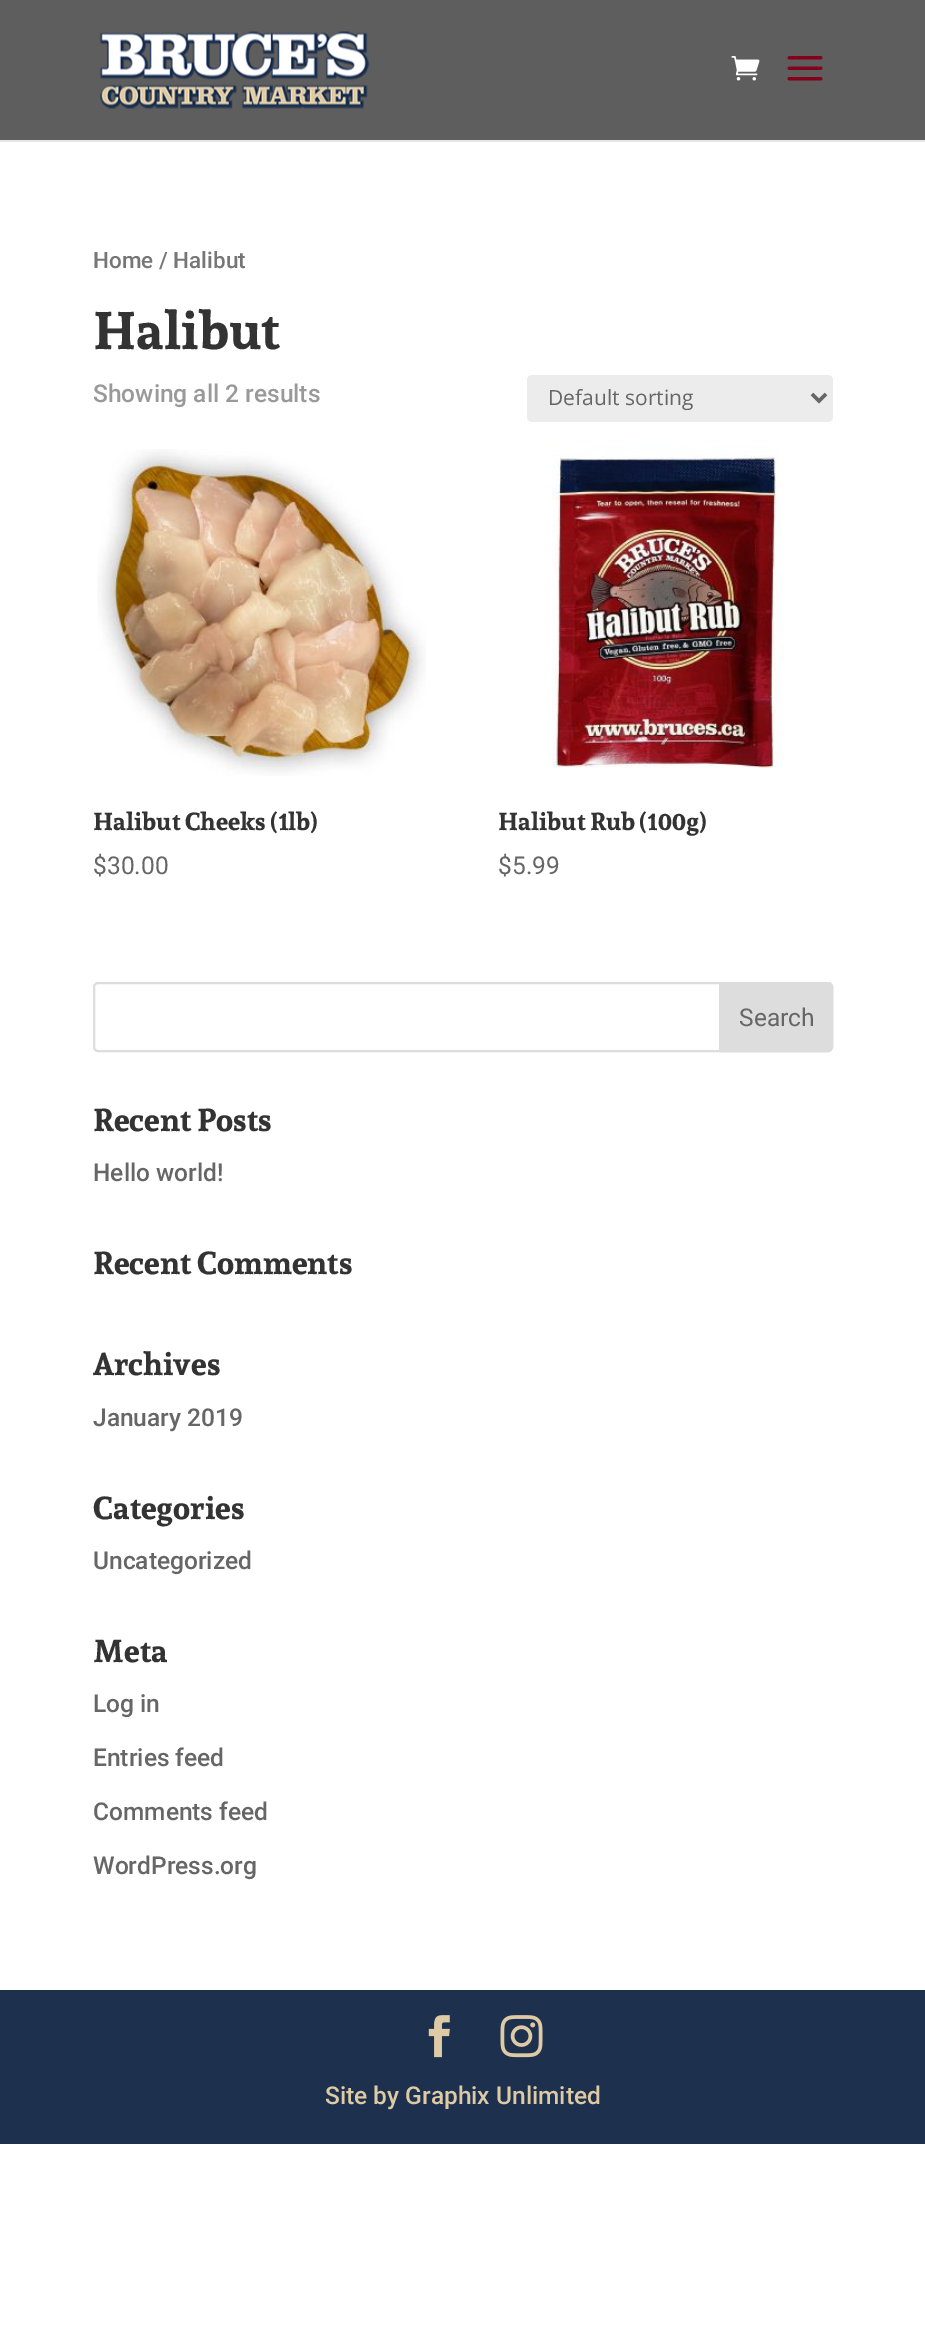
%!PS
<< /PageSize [925 2331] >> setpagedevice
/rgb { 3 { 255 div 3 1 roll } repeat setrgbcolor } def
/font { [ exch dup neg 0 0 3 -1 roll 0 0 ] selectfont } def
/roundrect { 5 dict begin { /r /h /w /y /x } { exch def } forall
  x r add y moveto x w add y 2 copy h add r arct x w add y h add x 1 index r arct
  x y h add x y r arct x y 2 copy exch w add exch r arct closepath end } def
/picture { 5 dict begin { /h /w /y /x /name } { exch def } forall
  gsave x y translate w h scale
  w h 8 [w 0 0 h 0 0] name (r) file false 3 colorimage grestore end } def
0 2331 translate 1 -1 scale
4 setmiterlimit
255 255 255 rgb
0 0 925 2331 rectfill
230 230 230 rgb
0 140 moveto 0 142 lineto 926 142 lineto 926 2 lineto 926 140 lineto closepath fill
94 94 94 rgb
0 0 925 140 rectfill
(img/1.rgb) 99 31 271 78 picture
(img/2.rgb) 731 56 29 25 picture
(img/3.rgb) 787 56 36 25 picture
236 236 236 rgb
527 375 306 47 5 roundrect fill
102 102 102 rgb
3.5 setlinewidth
812 394 moveto 819 401 lineto 826 394 lineto stroke
(img/4.rgb) 97 449 329 327 picture
(img/5.rgb) 552 446 232 322 picture
221 221 221 rgb
2 setlinewidth
94 983 738 68 4 roundrect stroke
720 983 moveto 828 983 lineto 830 983 832 985 832 987 curveto 832 1047 lineto 832 1049 830 1051 828 1051 curveto 720 1051 lineto closepath gsave fill grestore
stroke
29 49 78 rgb
0 1990 925 154 rectfill
(img/6.rgb) 428 2015 22 43 picture
(img/7.rgb) 500 2015 43 43 picture
/Roboto-Medium 22.5 font
118 118 118 rgb
93 268 moveto (Home / Halibut) show
/Sura-Bold 52.5 font
51 51 51 rgb
93 349 moveto (Halibut) show
/Roboto-Medium 24.5 font
153 153 153 rgb
93 402 moveto (Showing all 2 results) show
/OpenSans-Regular 21 font
102 102 102 rgb
548 405 moveto (Default sorting) show
/Sura-Bold 24.5 font
51 51 51 rgb
93 830 moveto (Halibut Cheeks \(1lb\)) show
/Roboto-Regular 24.5 font
102 102 102 rgb
93 874 moveto ($30.00) show
/Sura-Bold 24.5 font
51 51 51 rgb
498 830 moveto (Halibut Rub \(100g\)) show
/Roboto-Regular 24.5 font
102 102 102 rgb
498 874 moveto ($5.99) show
739 1026 moveto (Search) show
/Sura-Bold 31.5 font
51 51 51 rgb
93 1131 moveto (Recent Posts) show
/Roboto-Medium 24.5 font
102 102 102 rgb
93 1181 moveto (Hello world!) show
/Sura-Bold 31.5 font
51 51 51 rgb
93 1274 moveto (Recent Comments) show
93 1375 moveto (Archives) show
/Roboto-Medium 24.5 font
102 102 102 rgb
93 1426 moveto (January 2019) show
/Sura-Bold 31.5 font
51 51 51 rgb
93 1519 moveto (Categories) show
/Roboto-Medium 24.5 font
102 102 102 rgb
93 1569 moveto (Uncategorized) show
/Sura-Bold 31.5 font
51 51 51 rgb
93 1662 moveto (Meta) show
/Roboto-Medium 24.5 font
102 102 102 rgb
[
  [(Log in) 93 1712]
  [(Entries feed) 93 1766]
  [(Comments feed) 93 1820]
  [(WordPress.org) 93 1874]
] { aload pop moveto show } forall
222 202 165 rgb
325 2104 moveto (Site by Graphix Unlimited) show
showpage
